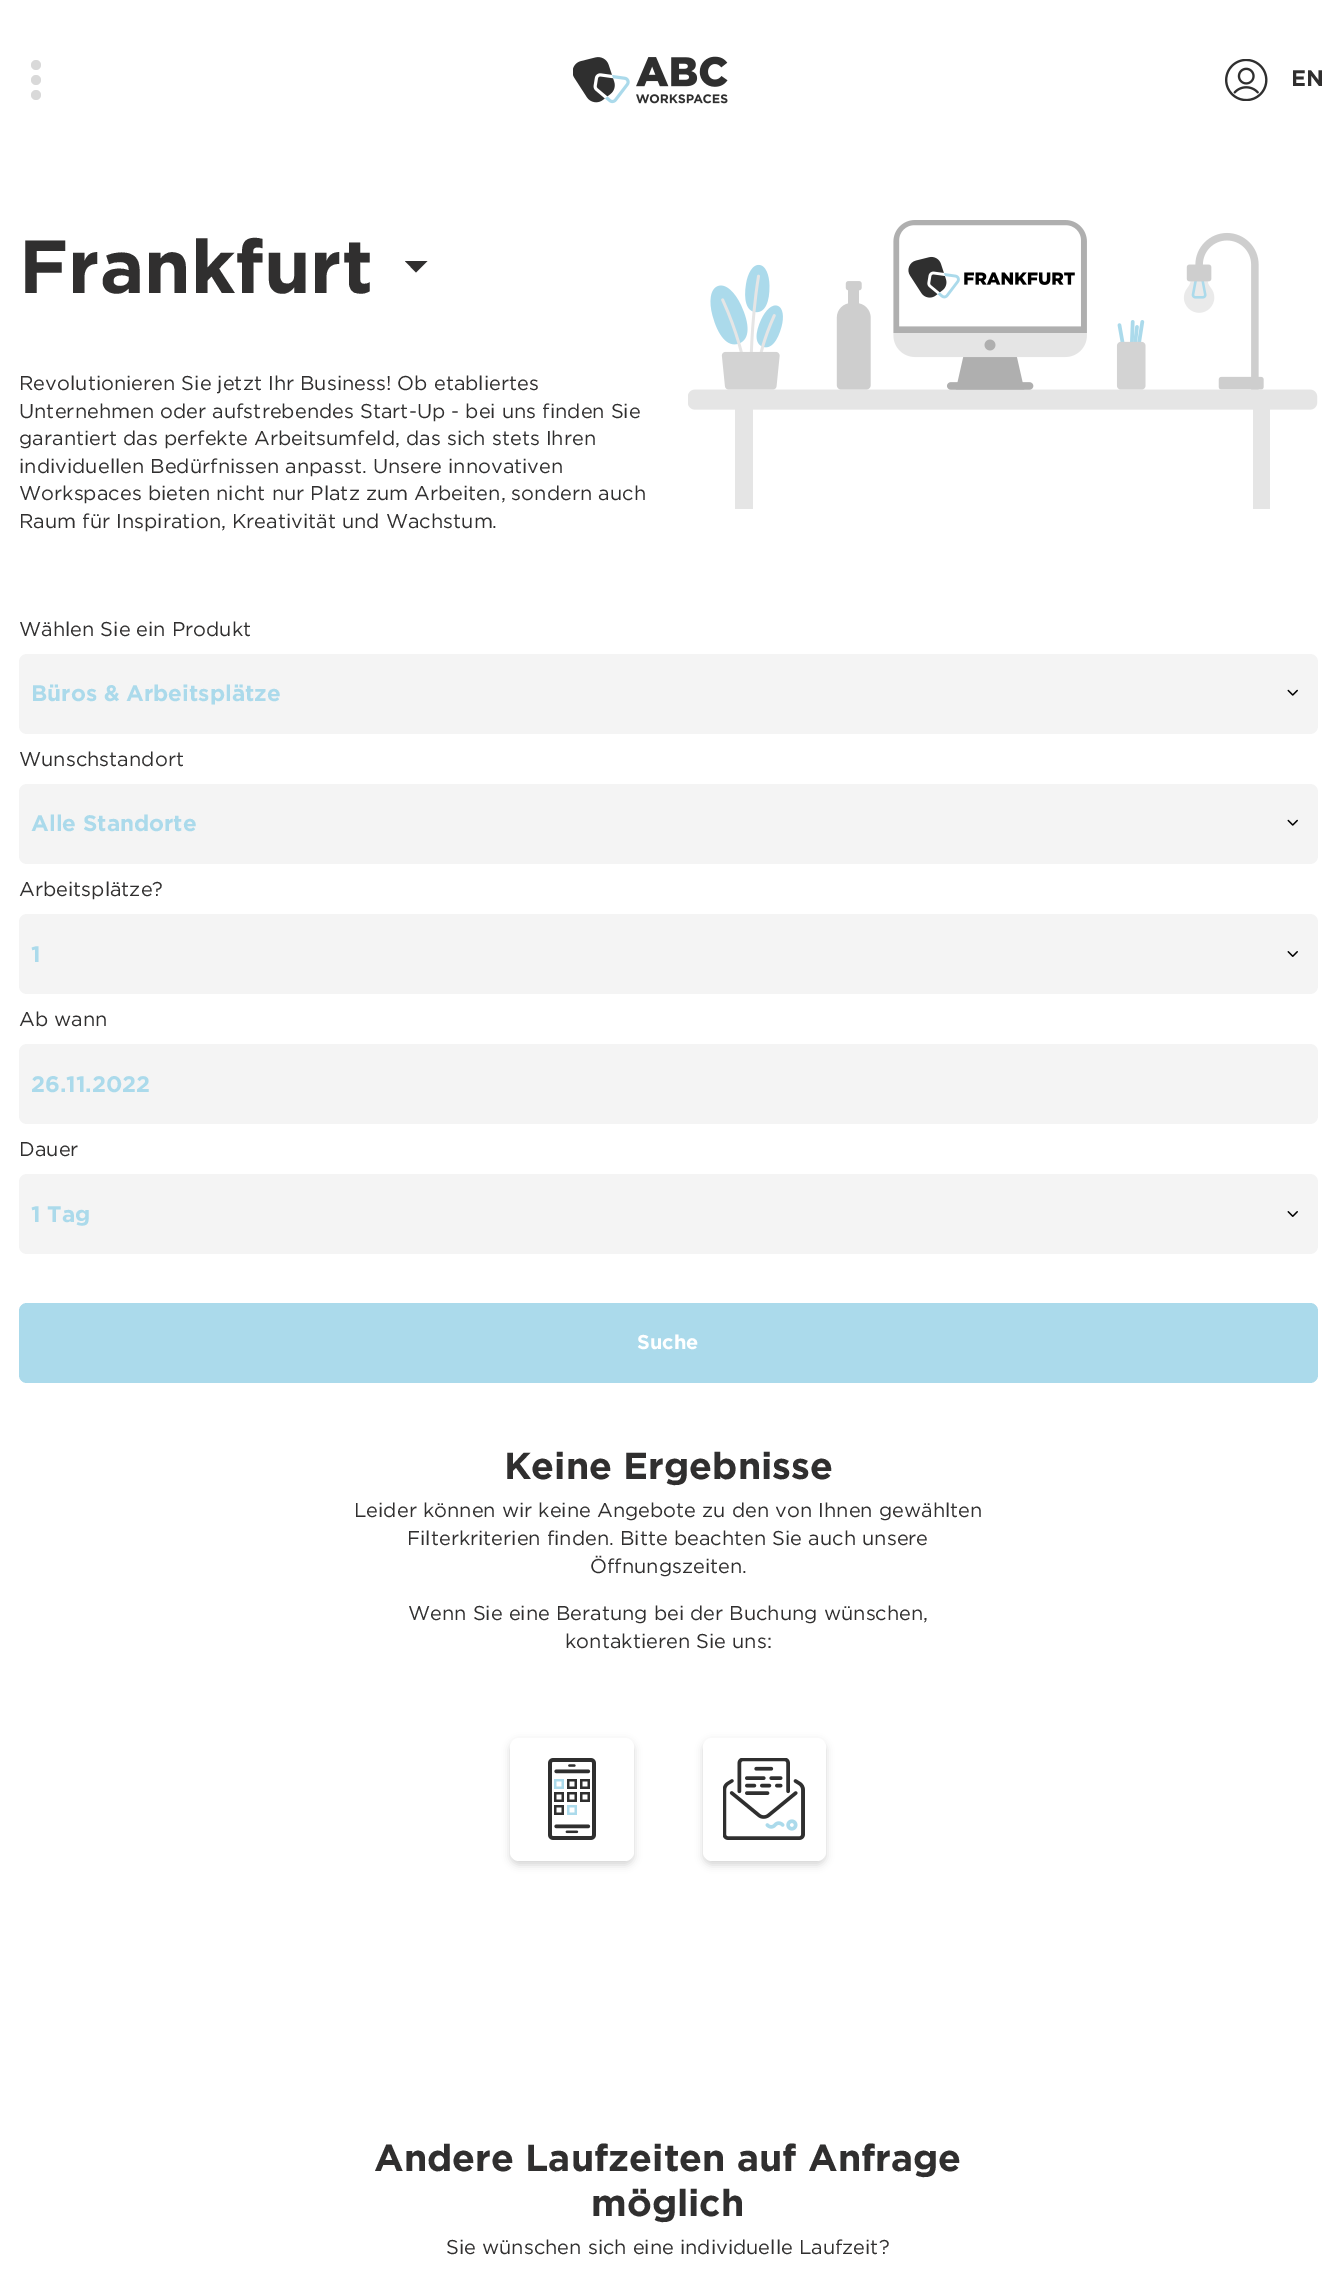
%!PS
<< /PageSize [1336 2285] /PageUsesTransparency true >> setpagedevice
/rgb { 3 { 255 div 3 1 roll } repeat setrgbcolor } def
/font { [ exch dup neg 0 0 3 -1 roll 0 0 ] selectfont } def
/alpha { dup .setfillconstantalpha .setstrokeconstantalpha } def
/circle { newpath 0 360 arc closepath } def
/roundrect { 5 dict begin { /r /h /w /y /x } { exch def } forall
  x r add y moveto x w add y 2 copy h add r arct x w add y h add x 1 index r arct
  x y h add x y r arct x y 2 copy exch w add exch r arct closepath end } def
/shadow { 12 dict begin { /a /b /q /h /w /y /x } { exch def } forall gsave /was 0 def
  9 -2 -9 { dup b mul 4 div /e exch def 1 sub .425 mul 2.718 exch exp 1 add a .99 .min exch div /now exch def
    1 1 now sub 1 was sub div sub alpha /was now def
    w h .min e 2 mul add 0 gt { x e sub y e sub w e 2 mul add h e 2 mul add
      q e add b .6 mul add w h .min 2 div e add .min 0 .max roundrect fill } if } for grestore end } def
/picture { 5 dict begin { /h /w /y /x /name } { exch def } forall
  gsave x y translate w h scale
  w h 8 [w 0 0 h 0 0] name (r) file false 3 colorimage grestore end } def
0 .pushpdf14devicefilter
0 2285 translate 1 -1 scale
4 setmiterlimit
255 255 255 rgb
0 0 1336 2285 rectfill
217 217 217 rgb
36 65 5 circle fill
36 80 5 circle fill
36 95 5 circle fill
(img/1.rgb) 573 56 155 48 picture
(img/2.rgb) 1225 59 43 42 picture
48 47 47 rgb
405 261 moveto 427.5 261 lineto 416 272.5 lineto closepath fill
(img/3.rgb) 688 220 630 289 picture
244 244 244 rgb
19 654 1299 80 8 roundrect fill
(img/4.rgb) 1287 689 11 7 picture
19 784 1299 80 8 roundrect fill
(img/4.rgb) 1287 819 11 7 picture
19 914 1299 80 8 roundrect fill
(img/5.rgb) 1287 951 11 6 picture
19 1044 1299 80 8 roundrect fill
19 1174 1299 80 8 roundrect fill
(img/5.rgb) 1287 1211 11 6 picture
171 218 235 rgb
19 1303 1299 80 8 roundrect fill
0 0 0 rgb
510 1741 124 124 9 4 0.16 shadow
255 255 255 rgb
510 1738 124 123 9 roundrect fill
(img/6.rgb) 548 1758 48 82 picture
0 0 0 rgb
703 1741 123 124 9 4 0.16 shadow
255 255 255 rgb
703 1738 123 123 9 roundrect fill
(img/7.rgb) 723 1758 82 82 picture
/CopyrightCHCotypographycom-Regular 22.5 font
48 47 47 rgb
1291 86 moveto (EN) show
/CopyrightCHCotypographycom-Regular 75 font
19 293 moveto (Frankfurt) show
/CopyrightCHCotypographycom-Light 20 font
[
  [(Revolutionieren Sie jetzt Ihr Business! Ob etabliertes) 19 390]
  [(Unternehmen oder aufstrebendes Start-Up - bei uns finden Sie) 19 418]
  [(garantiert das perfekte Arbeitsumfeld, das sich stets Ihren) 19 445]
  [(individuellen Bedürfnissen anpasst. Unsere innovativen) 19 473]
  [(Workspaces bieten nicht nur Platz zum Arbeiten, sondern auch) 19 500]
  [(Raum für Inspiration, Kreativität und Wachstum.) 19 528]
  [(Wählen Sie ein Produkt) 19 636]
] { aload pop moveto show } forall
/CopyrightCHCotypographycom-Regular 22.5 font
171 218 235 rgb
31 701 moveto (Büros & Arbeitsplätze) show
/CopyrightCHCotypographycom-Light 20 font
48 47 47 rgb
19 766 moveto (Wunschstandort) show
/CopyrightCHCotypographycom-Regular 22.5 font
171 218 235 rgb
31 831 moveto (Alle Standorte) show
/CopyrightCHCotypographycom-Light 20 font
48 47 47 rgb
19 896 moveto (Arbeitsplätze?) show
/CopyrightCHCotypographycom-Regular 22.5 font
171 218 235 rgb
31 962 moveto (1) show
/CopyrightCHCotypographycom-Light 20 font
48 47 47 rgb
19 1026 moveto (Ab wann) show
/CopyrightCHCotypographycom-Regular 22.5 font
171 218 235 rgb
31 1092 moveto (26.11.2022) show
/CopyrightCHCotypographycom-Light 20 font
48 47 47 rgb
19 1156 moveto (Dauer) show
/CopyrightCHCotypographycom-Regular 22.5 font
171 218 235 rgb
31 1222 moveto (1 Tag) show
/CopyrightCHCotypographycom-Regular 20 font
255 255 255 rgb
637 1349 moveto (Suche) show
/CopyrightCHCotypographycom-Regular 37.5 font
48 47 47 rgb
504 1479 moveto (Keine Ergebnisse) show
/CopyrightCHCotypographycom-Light 20 font
[
  [(Leider können wir keine Angebote zu den von Ihnen gewählten) 354 1517]
  [(Filterkriterien finden. Bitte beachten Sie auch unsere) 407 1545]
  [(Öffnungszeiten.) 590 1573]
  [(Wenn Sie eine Beratung bei der Buchung wünschen,) 408 1620]
  [(kontaktieren Sie uns:) 565 1648]
] { aload pop moveto show } forall
/CopyrightCHCotypographycom-Regular 37.5 font
374 2171 moveto (Andere Laufzeiten auf Anfrage) show
591 2216 moveto (möglich) show
/CopyrightCHCotypographycom-Light 20 font
446 2254 moveto (Sie wünschen sich eine individuelle Laufzeit?) show
.poppdf14devicefilter showpage
